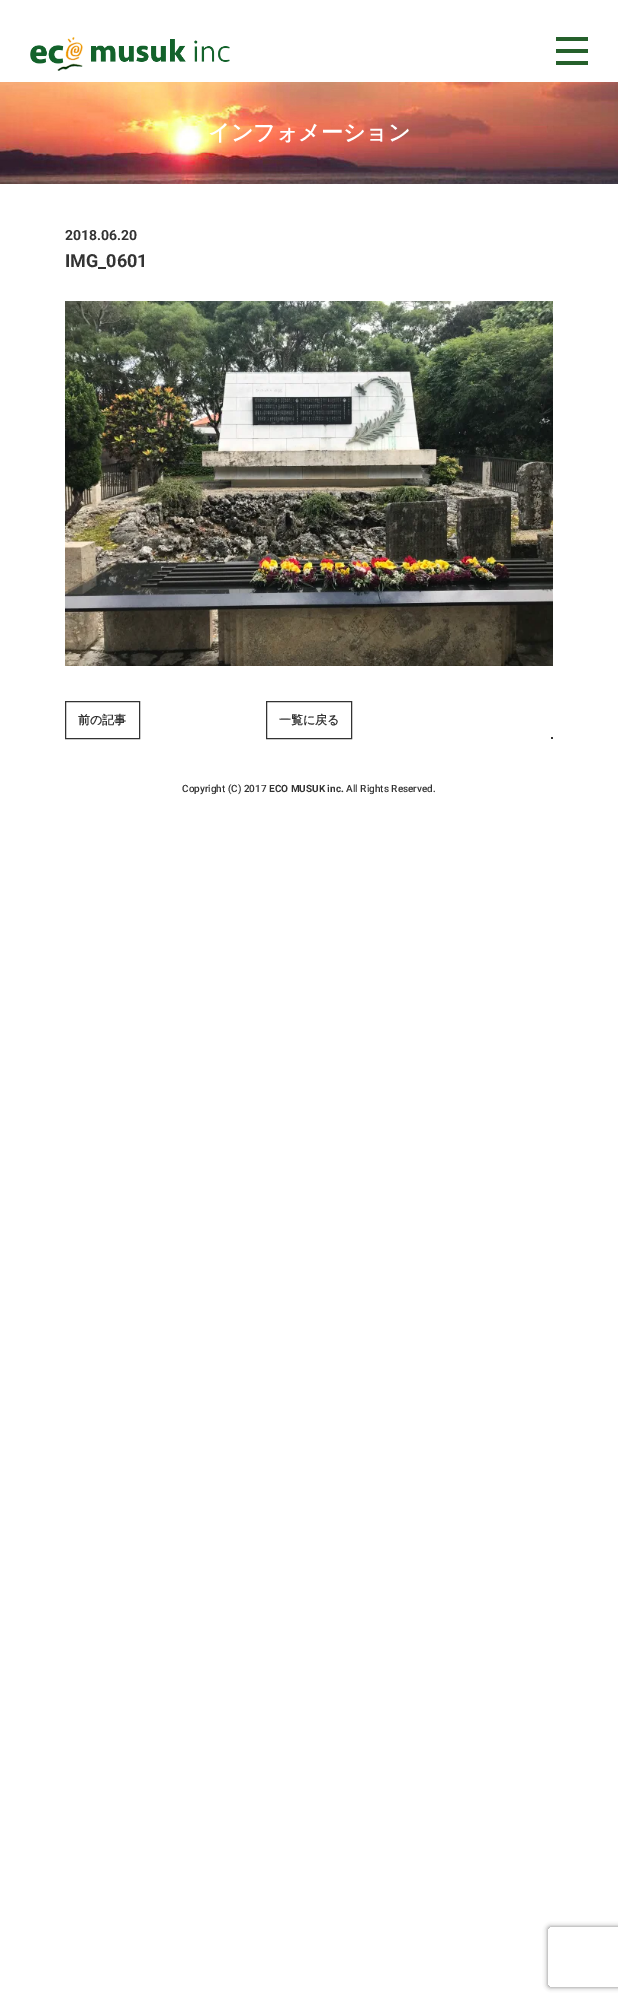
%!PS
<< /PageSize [618 2001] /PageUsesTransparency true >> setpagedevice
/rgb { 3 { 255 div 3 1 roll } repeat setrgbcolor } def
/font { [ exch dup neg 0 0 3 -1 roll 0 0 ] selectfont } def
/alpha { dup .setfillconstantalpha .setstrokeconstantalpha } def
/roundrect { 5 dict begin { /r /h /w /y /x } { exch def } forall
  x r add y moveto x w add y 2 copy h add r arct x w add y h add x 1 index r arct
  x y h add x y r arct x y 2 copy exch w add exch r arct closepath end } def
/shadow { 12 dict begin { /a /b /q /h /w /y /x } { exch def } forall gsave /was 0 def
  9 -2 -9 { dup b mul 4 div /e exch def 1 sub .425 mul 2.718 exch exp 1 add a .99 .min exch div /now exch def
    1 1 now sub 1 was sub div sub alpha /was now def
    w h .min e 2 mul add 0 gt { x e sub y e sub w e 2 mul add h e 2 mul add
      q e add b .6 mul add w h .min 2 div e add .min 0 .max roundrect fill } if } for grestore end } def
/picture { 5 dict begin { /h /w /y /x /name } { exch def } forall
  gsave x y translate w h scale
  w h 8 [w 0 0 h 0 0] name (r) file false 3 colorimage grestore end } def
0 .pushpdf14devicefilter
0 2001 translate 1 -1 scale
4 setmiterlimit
255 255 255 rgb
0 0 618 2001 rectfill
(img/1.rgb) 30 37 200 34 picture
(img/2.rgb) 556 37 32 28 picture
(img/3.rgb) 0 82 618 102 picture
(img/4.rgb) 65 301 488 365 picture
51 51 51 rgb
65.5 701.5 74 37 rectstroke
266.5 701.5 85 37 rectstroke
551 737 2 2 rectfill
gsave
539 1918 moveto 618 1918 lineto 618 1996 lineto 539 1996 lineto closepath 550 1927 moveto 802 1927 lineto 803 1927 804 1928 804 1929 curveto 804 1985 lineto 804 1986 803 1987 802 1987 curveto 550 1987 lineto 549 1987 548 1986 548 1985 curveto 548 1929 lineto 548 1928 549 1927 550 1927 curveto closepath eoclip newpath
128 128 128 rgb
548 1927 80 60 2 2.5 1 shadow
grestore
/WenQuanYiZenHei-Bold 22 font
255 255 255 rgb
208 140 moveto (インフォメーション) show
/Roboto-Bold 14 font
51 51 51 rgb
65 240 moveto (2018.06.20) show
/Roboto-Bold 18 font
65 267 moveto (IMG_0601) show
/WenQuanYiZenHei-Bold 12 font
78 724 moveto (前の記事) show
279 724 moveto (一覧に戻る) show
/Roboto-Medium 10 font
182 792 moveto (Copyright \(C\) 2017) show
/Roboto-Bold 10 font
269 792 moveto (ECO MUSUK inc.) show
/Roboto-Medium 10 font
346 792 moveto (All Rights Reserved.) show
.poppdf14devicefilter showpage
